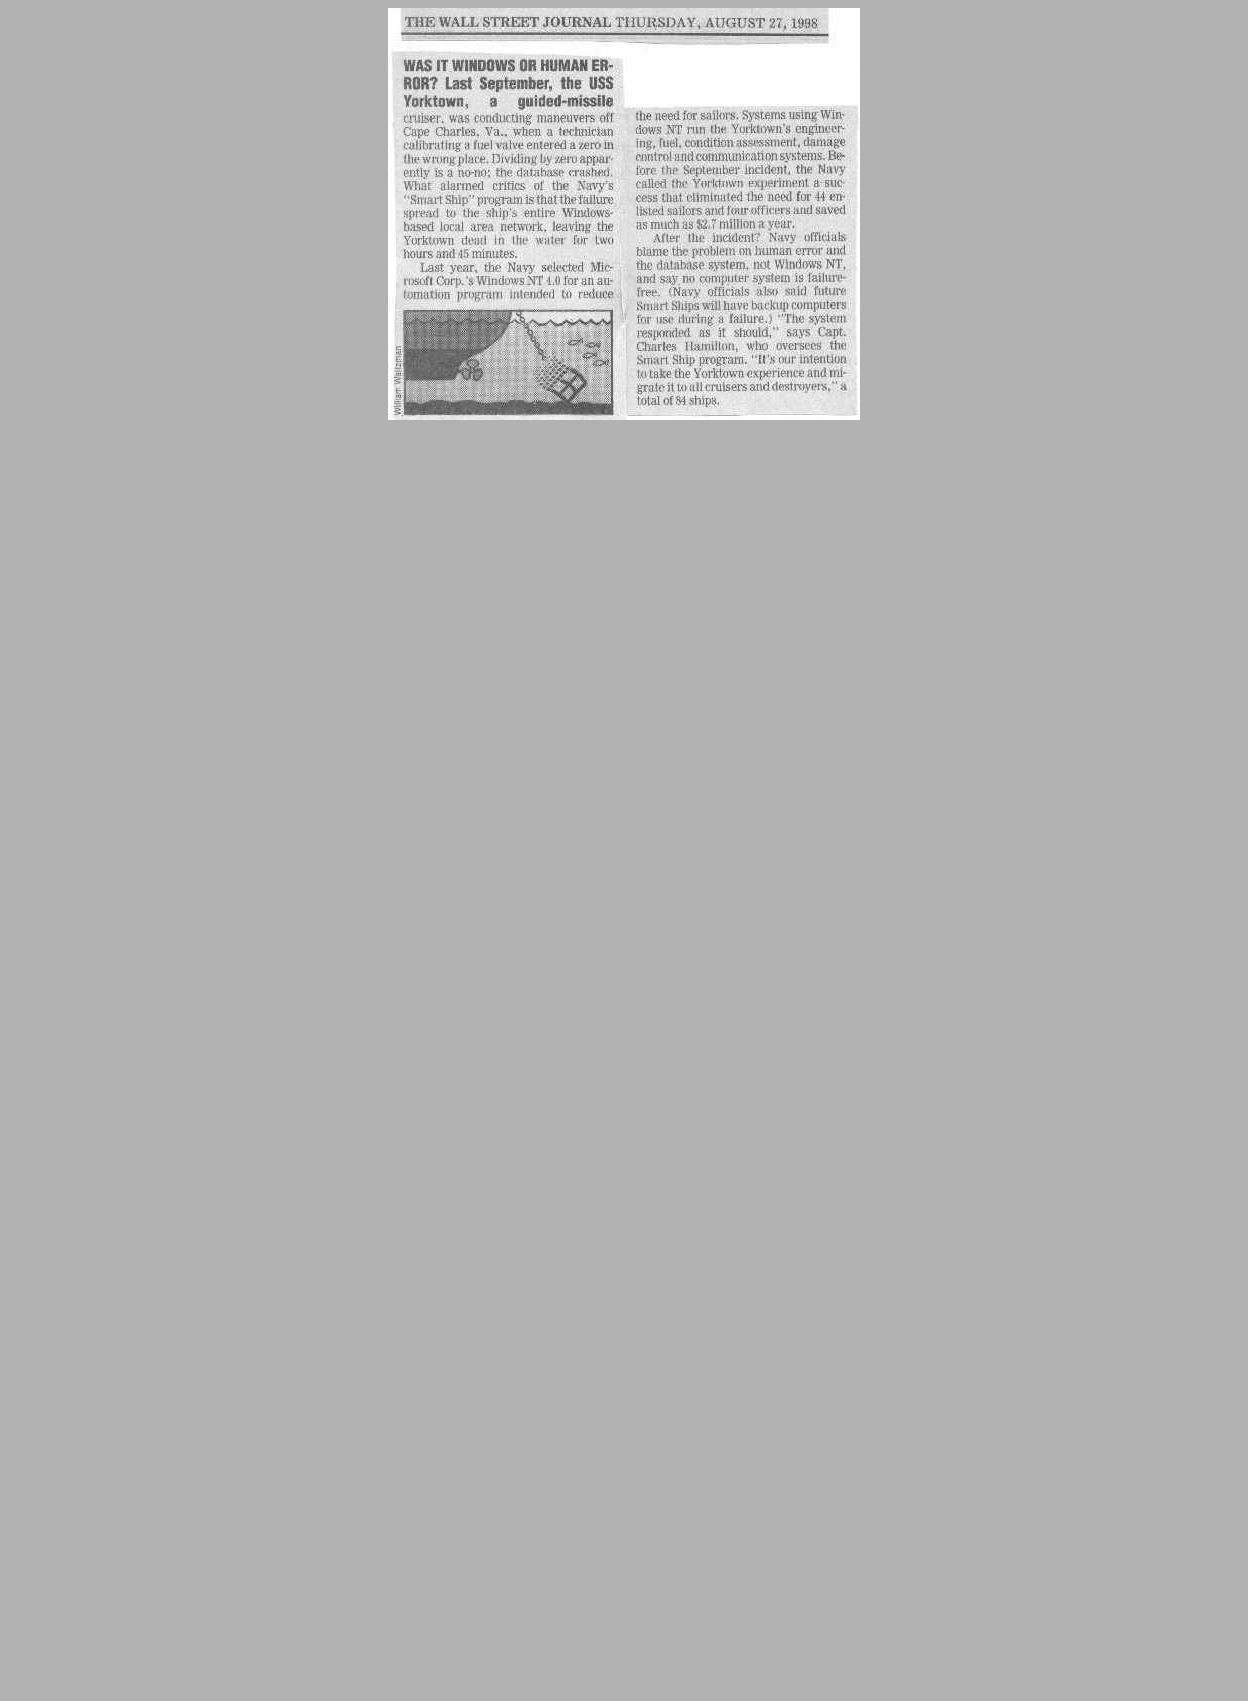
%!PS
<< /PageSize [1248 1701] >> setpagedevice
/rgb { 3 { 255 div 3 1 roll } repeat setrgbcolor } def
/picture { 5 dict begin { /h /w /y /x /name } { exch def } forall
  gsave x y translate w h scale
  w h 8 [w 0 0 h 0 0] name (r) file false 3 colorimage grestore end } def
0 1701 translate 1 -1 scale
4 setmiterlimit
178 178 178 rgb
0 0 1248 1701 rectfill
(img/1.rgb) 388 8 472 412 picture
showpage
